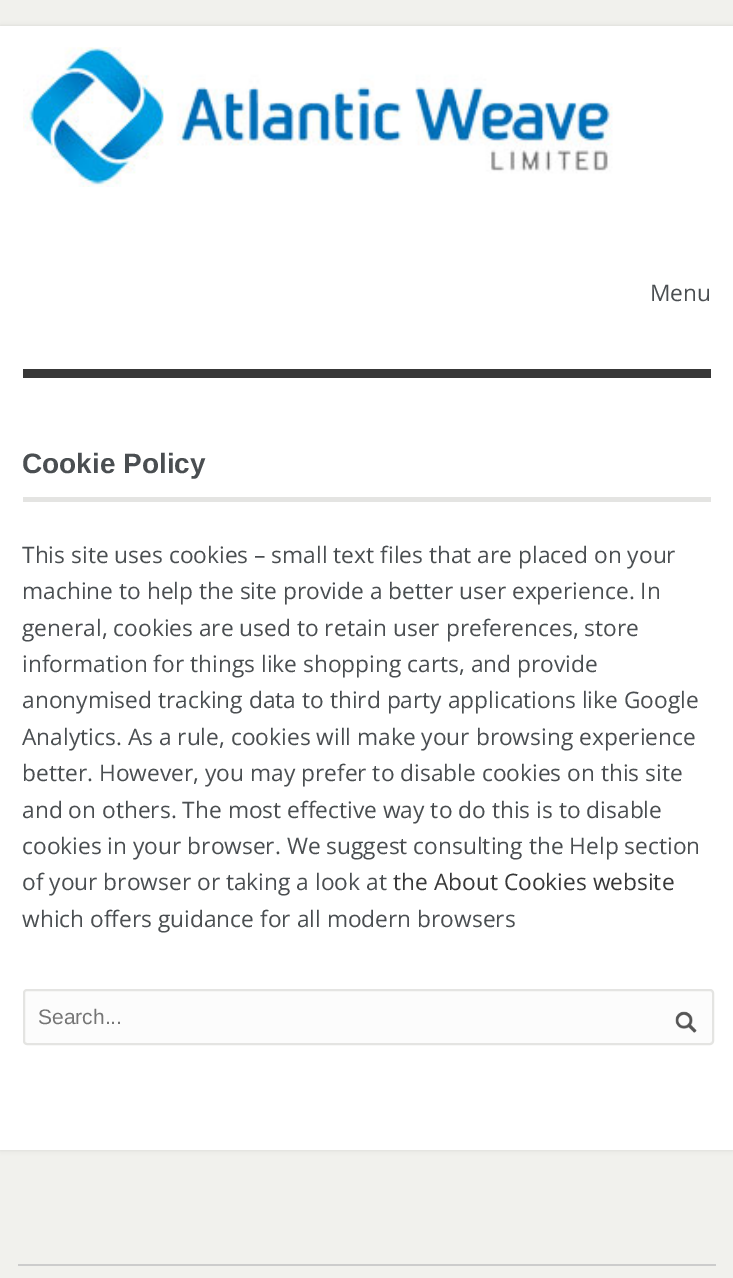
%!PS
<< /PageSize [733 1278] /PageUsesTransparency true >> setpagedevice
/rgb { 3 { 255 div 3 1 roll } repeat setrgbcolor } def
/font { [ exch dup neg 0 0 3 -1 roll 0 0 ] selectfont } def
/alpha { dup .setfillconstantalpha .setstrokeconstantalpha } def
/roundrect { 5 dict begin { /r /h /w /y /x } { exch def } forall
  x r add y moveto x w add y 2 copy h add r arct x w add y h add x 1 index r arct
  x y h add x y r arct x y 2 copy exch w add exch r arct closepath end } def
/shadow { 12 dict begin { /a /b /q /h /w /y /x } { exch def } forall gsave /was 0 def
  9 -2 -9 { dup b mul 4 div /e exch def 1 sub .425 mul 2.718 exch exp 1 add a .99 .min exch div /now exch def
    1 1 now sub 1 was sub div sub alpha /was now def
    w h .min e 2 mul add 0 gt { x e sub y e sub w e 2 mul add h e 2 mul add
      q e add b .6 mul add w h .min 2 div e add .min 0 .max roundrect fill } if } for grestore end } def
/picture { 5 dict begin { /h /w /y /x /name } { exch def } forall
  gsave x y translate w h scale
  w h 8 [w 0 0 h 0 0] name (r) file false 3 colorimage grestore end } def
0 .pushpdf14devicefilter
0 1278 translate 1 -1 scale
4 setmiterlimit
241 241 237 rgb
0 0 733 1278 rectfill
0 0 0 rgb
0 26 733 1124 0 2.5 0.1 shadow
255 255 255 rgb
0 26 733 1124 rectfill
(img/1.rgb) 23 47 590 140 picture
56 56 56 rgb
23 369 688 9 rectfill
228 228 226 rgb
23 497 688 5 rectfill
252 252 252 rgb
24 990 689 54 3 roundrect gsave fill grestore
228 228 226 rgb
2 setlinewidth
stroke
(img/2.rgb) 675 1011 22 22 picture
204 204 204 rgb
18 1264 698 2 rectfill
/OpenSans-Regular 22.75 font
74 78 81 rgb
650 301 moveto (Menu) show
/LiberationSans-Bold 28 font
22 473 moveto (Cookie Policy) show
/OpenSans-Regular 22.75 font
[
  [(This site uses cookies – small text files that are placed on your) 22 563]
  [(machine to help the site provide a better user experience. In) 22 599]
  [(general, cookies are used to retain user preferences, store) 22 636]
  [(information for things like shopping carts, and provide) 22 672]
  [(anonymised tracking data to third party applications like Google) 22 708]
  [(Analytics. As a rule, cookies will make your browsing experience) 22 745]
  [(better. However, you may prefer to disable cookies on this site) 22 781]
  [(and on others. The most effective way to do this is to disable) 22 818]
  [(cookies in your browser. We suggest consulting the Help section) 22 854]
  [(of your browser or taking a look at) 22 890]
] { aload pop moveto show } forall
56 56 56 rgb
393 890 moveto (the About Cookies website) show
74 78 81 rgb
22 927 moveto (which offers guidance for all modern browsers) show
/LiberationSans-Regular 21 font
117 117 117 rgb
38 1024 moveto (Search...) show
.poppdf14devicefilter showpage
